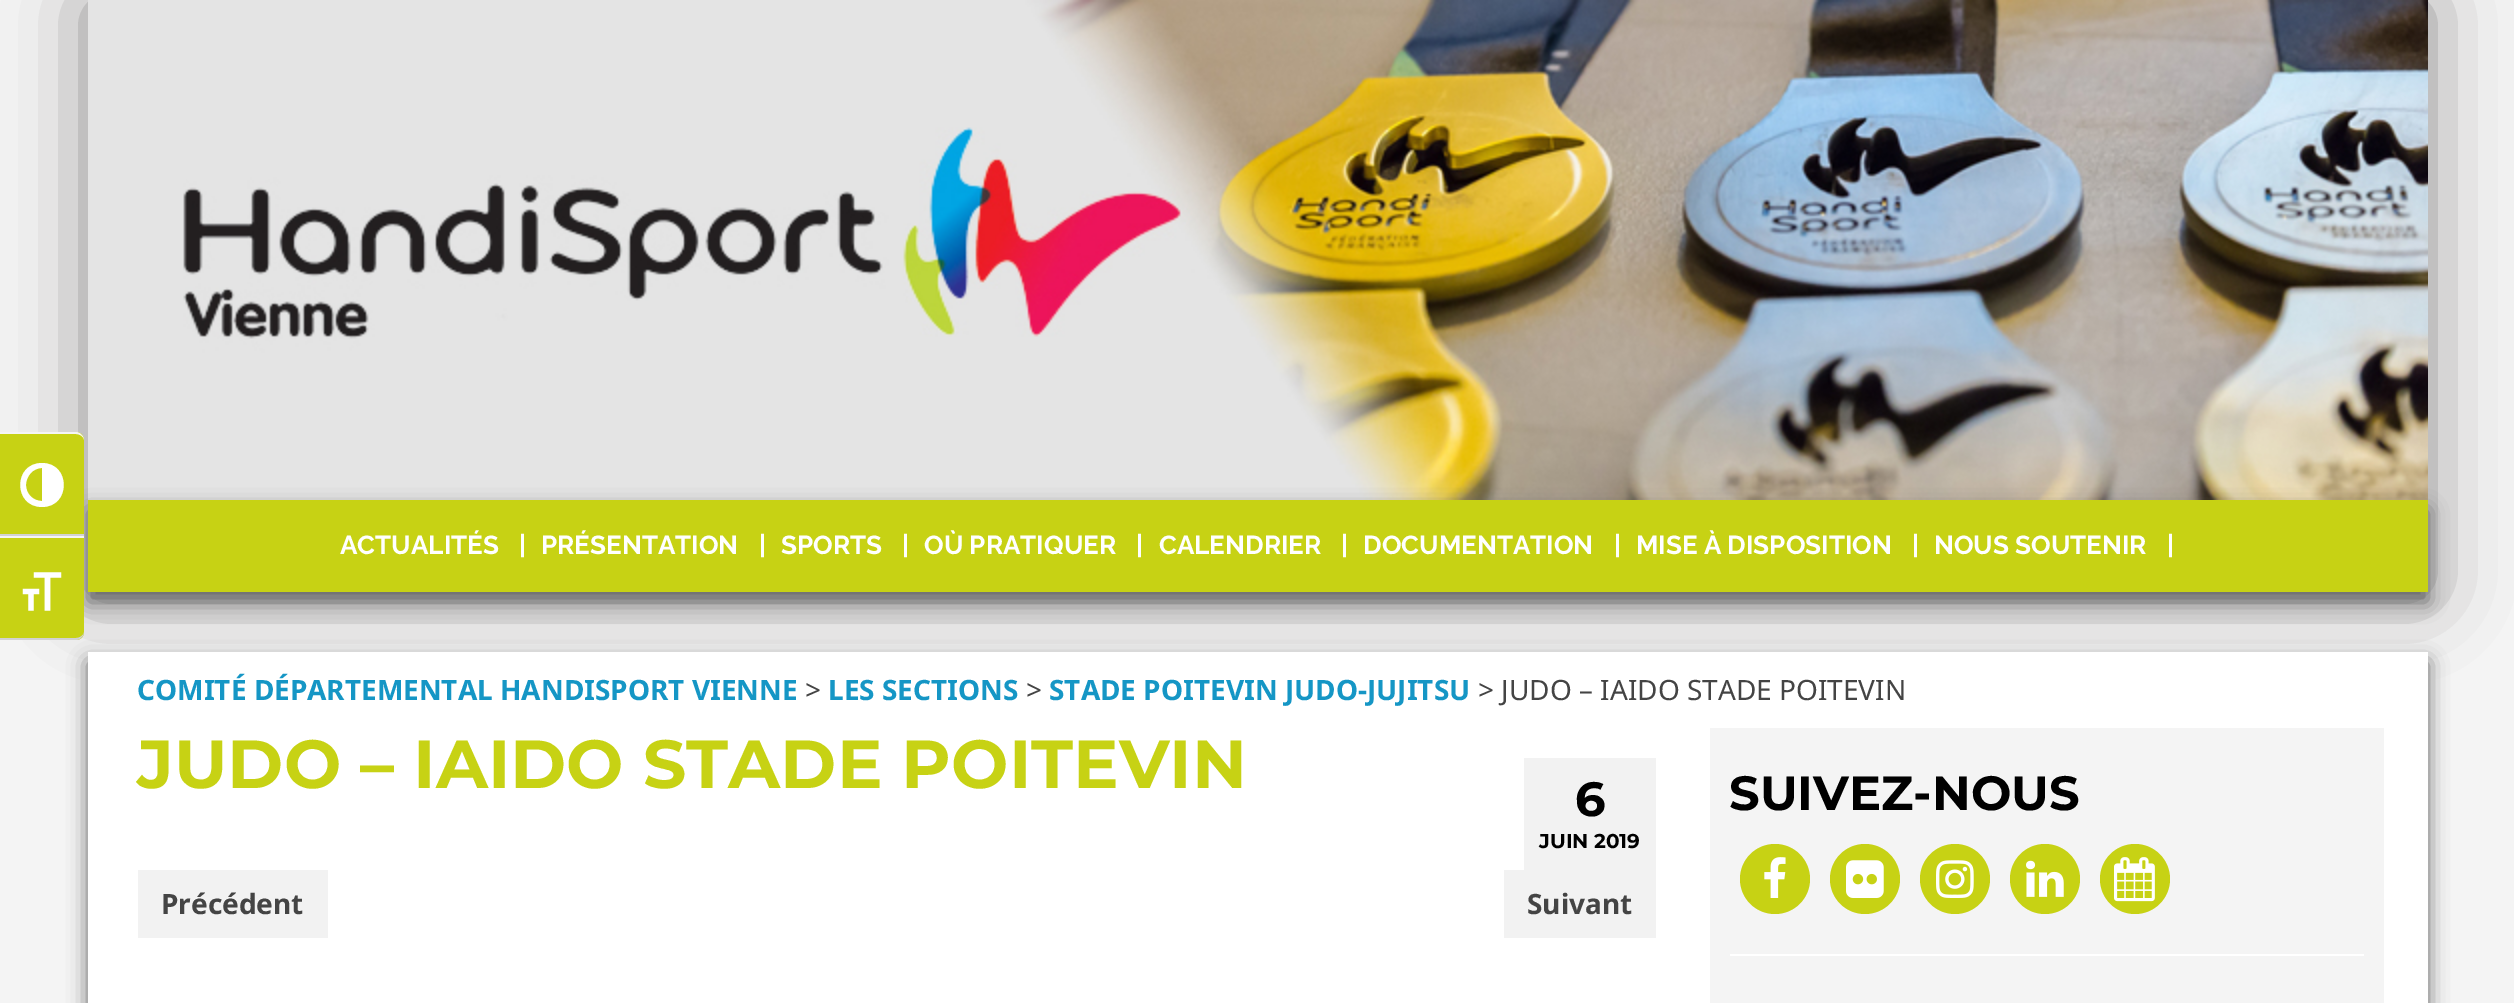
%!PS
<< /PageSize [2514 1003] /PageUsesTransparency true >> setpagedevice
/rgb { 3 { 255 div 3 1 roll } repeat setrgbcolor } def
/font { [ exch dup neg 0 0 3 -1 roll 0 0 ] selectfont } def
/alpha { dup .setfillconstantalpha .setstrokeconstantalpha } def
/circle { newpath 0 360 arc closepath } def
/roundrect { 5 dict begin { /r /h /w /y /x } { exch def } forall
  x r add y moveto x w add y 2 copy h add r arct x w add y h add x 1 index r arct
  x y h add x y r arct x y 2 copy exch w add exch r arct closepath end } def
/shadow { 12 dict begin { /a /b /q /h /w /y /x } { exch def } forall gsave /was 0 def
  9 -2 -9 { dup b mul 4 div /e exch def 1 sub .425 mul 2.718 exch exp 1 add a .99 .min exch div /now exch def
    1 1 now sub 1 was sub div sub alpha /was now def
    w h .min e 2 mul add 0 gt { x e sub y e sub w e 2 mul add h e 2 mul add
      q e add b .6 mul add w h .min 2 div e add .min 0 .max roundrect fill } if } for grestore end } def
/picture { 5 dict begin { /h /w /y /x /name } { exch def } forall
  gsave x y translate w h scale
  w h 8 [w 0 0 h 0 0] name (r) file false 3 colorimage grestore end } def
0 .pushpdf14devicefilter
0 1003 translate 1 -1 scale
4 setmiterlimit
244 244 244 rgb
0 0 2514 1003 rectfill
139 138 138 rgb
88 2 2340 592 0 40 1 shadow
(img/2.rgb) 88 0 2340 500 picture
101 101 101 rgb
88 510 2340 92 0 10 1 shadow
199 210 20 rgb
0 432 moveto 76 432 lineto 80.5 432 84 435.5 84 440 curveto 84 536 lineto 0 536 lineto closepath fill
245 245 245 rgb
0 432 moveto 0 434 lineto 76 434 lineto 80 434 84 437 84 440 curveto 84 436 80 432 76 432 curveto closepath fill
210 210 210 rgb
0 534 84 2 rectfill
255 255 255 rgb
42 463 moveto 13 463 13 507 42 507 curveto 71 507 71 463 42 463 curveto closepath 26 485 moveto 26 476 33 468 42 468 curveto 42 501 lineto 33 501 26 494 26 485 curveto closepath fill
101 101 101 rgb
88 662 2340 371 0 10 1 shadow
199 210 20 rgb
0 536 moveto 84 536 lineto 84 632 lineto 84 636.5 80.5 640 76 640 curveto 0 640 lineto closepath fill
245 245 245 rgb
0 536 84 2 rectfill
210 210 210 rgb
0 638 moveto 0 640 lineto 76 640 lineto 80 640 84 636 84 632 curveto 84 635 80 638 76 638 curveto closepath fill
(img/1.rgb) 22 572 40 39 picture
[
  [88 500 2340 92 199 210 20]
  [88 652 2340 351 255 255 255]
  [1524 758 132 112 242 242 242]
  [138 870 190 68 242 242 242]
  [1504 870 152 68 242 242 242]
  [1710 728 674 275 244 244 244]
  [1730 954 634 2 255 255 255]
] { aload pop rgb rectfill } forall
199 210 20 rgb
1775 879 35 circle fill
(img/3.rgb) 1764 857 22 41 picture
1865 879 35 circle fill
(img/4.rgb) 1846 860 38 38 picture
1955 879 35 circle fill
(img/5.rgb) 1936 860 38 38 picture
2045 879 35 circle fill
(img/6.rgb) 2026 860 38 37 picture
2135 879 35 circle fill
(img/7.rgb) 2114 857 41 45 picture
/Raleway-Bold 26 font
255 255 255 rgb
[
  [(ACTUALITÉS) 340 554]
  [(|) 519 554]
  [(PRÉSENTATION) 541 554]
  [(|) 759 554]
  [(SPORTS) 781 554]
  [(|) 902 554]
  [(OÙ PRATIQUER) 924 554]
  [(|) 1136 554]
  [(CALENDRIER) 1159 554]
  [(|) 1341 554]
  [(DOCUMENTATION) 1363 554]
  [(|) 1614 554]
  [(MISE À DISPOSITION) 1636 554]
  [(|) 1912 554]
  [(NOUS SOUTENIR) 1934 554]
  [(|) 2167 554]
] { aload pop moveto show } forall
/NotoSans-Bold 28 font
21 150 197 rgb
137 700 moveto (COMITÉ DÉPARTEMENTAL HANDISPORT VIENNE) show
/NotoSans-Regular 28 font
68 68 68 rgb
805 700 moveto (>) show
/NotoSans-Bold 28 font
21 150 197 rgb
828 700 moveto (LES SECTIONS) show
/NotoSans-Regular 28 font
68 68 68 rgb
1026 700 moveto (>) show
/NotoSans-Bold 28 font
21 150 197 rgb
1049 700 moveto (STADE POITEVIN JUDO-JUJITSU) show
/NotoSans-Regular 28 font
68 68 68 rgb
1478 700 moveto (> JUDO – IAIDO STADE POITEVIN) show
/Montserrat-Thin 68 font
199 210 20 rgb
137 788 moveto (JUDO – IAIDO STADE POITEVIN) show
/Montserrat-Thin 48 font
0 0 0 rgb
1575 816 moveto (6) show
/Montserrat-Thin 20 font
1539 848 moveto (JUIN 2019) show
/NotoSans-Bold 28 font
68 68 68 rgb
161 914 moveto (Précédent) show
1527 914 moveto (Suivant) show
/Montserrat-Thin 48 font
0 0 0 rgb
1729 810 moveto (SUIVEZ-NOUS) show
.poppdf14devicefilter showpage
